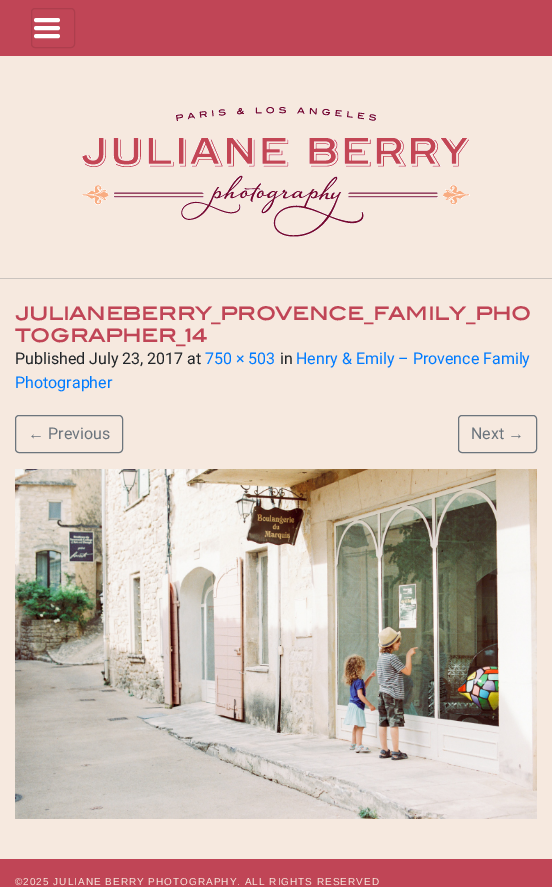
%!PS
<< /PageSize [552 887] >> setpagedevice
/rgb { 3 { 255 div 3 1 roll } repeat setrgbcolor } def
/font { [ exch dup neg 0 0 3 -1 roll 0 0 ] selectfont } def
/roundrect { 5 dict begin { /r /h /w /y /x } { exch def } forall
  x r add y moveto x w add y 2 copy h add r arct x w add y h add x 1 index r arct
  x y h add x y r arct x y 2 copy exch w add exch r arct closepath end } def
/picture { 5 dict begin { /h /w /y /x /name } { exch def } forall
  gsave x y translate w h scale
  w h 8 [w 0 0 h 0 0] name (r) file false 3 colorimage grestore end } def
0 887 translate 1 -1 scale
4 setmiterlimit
246 233 223 rgb
0 0 552 887 rectfill
192 69 86 rgb
0 0 552 56 rectfill
173 62 77 rgb
31.5 8.5 43 39 3.5 roundrect stroke
255 255 255 rgb
4 setlinewidth
1 setlinecap
36 20 moveto 58 20 lineto 36 28 moveto 58 28 lineto 36 36 moveto 58 36 lineto stroke
(img/1.rgb) 82 107 388 130 picture
202 195 190 rgb
0 278 552 1 rectfill
108 117 125 rgb
1 setlinewidth
0 setlinecap
15.5 415.5 107 37 3.5 roundrect stroke
458.5 415.5 78 37 3.5 roundrect stroke
(img/2.rgb) 15 469 522 350 picture
192 69 86 rgb
0 859 552 28 rectfill
/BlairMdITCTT-Bold 18 font
15 320 moveto (JULIANEBERRY_PROVENCE_FAMILY_PHO) show
15 342 moveto (TOGRAPHER_14) show
/Roboto-Regular 16 font
33 37 41 rgb
15 364 moveto (Published July 23, 2017 at) show
0 123 255 rgb
205 364 moveto (750 × 503) show
33 37 41 rgb
280 364 moveto (in) show
0 123 255 rgb
296 364 moveto (Henry & Emily – Provence Family) show
15 388 moveto (Photographer) show
/LiberationSans-Regular 16 font
108 117 125 rgb
28 439 moveto (←) show
/Roboto-Regular 16 font
48 439 moveto (Previous) show
471 439 moveto (Next) show
/LiberationSans-Regular 16 font
508 439 moveto (→) show
/LiberationSans-Regular 10 font
246 233 223 rgb
15 885 moveto 1 0 (©2025 JULIANE BERRY PHOTOGRAPHY. ALL RIGHTS RESERVED) ashow
showpage
